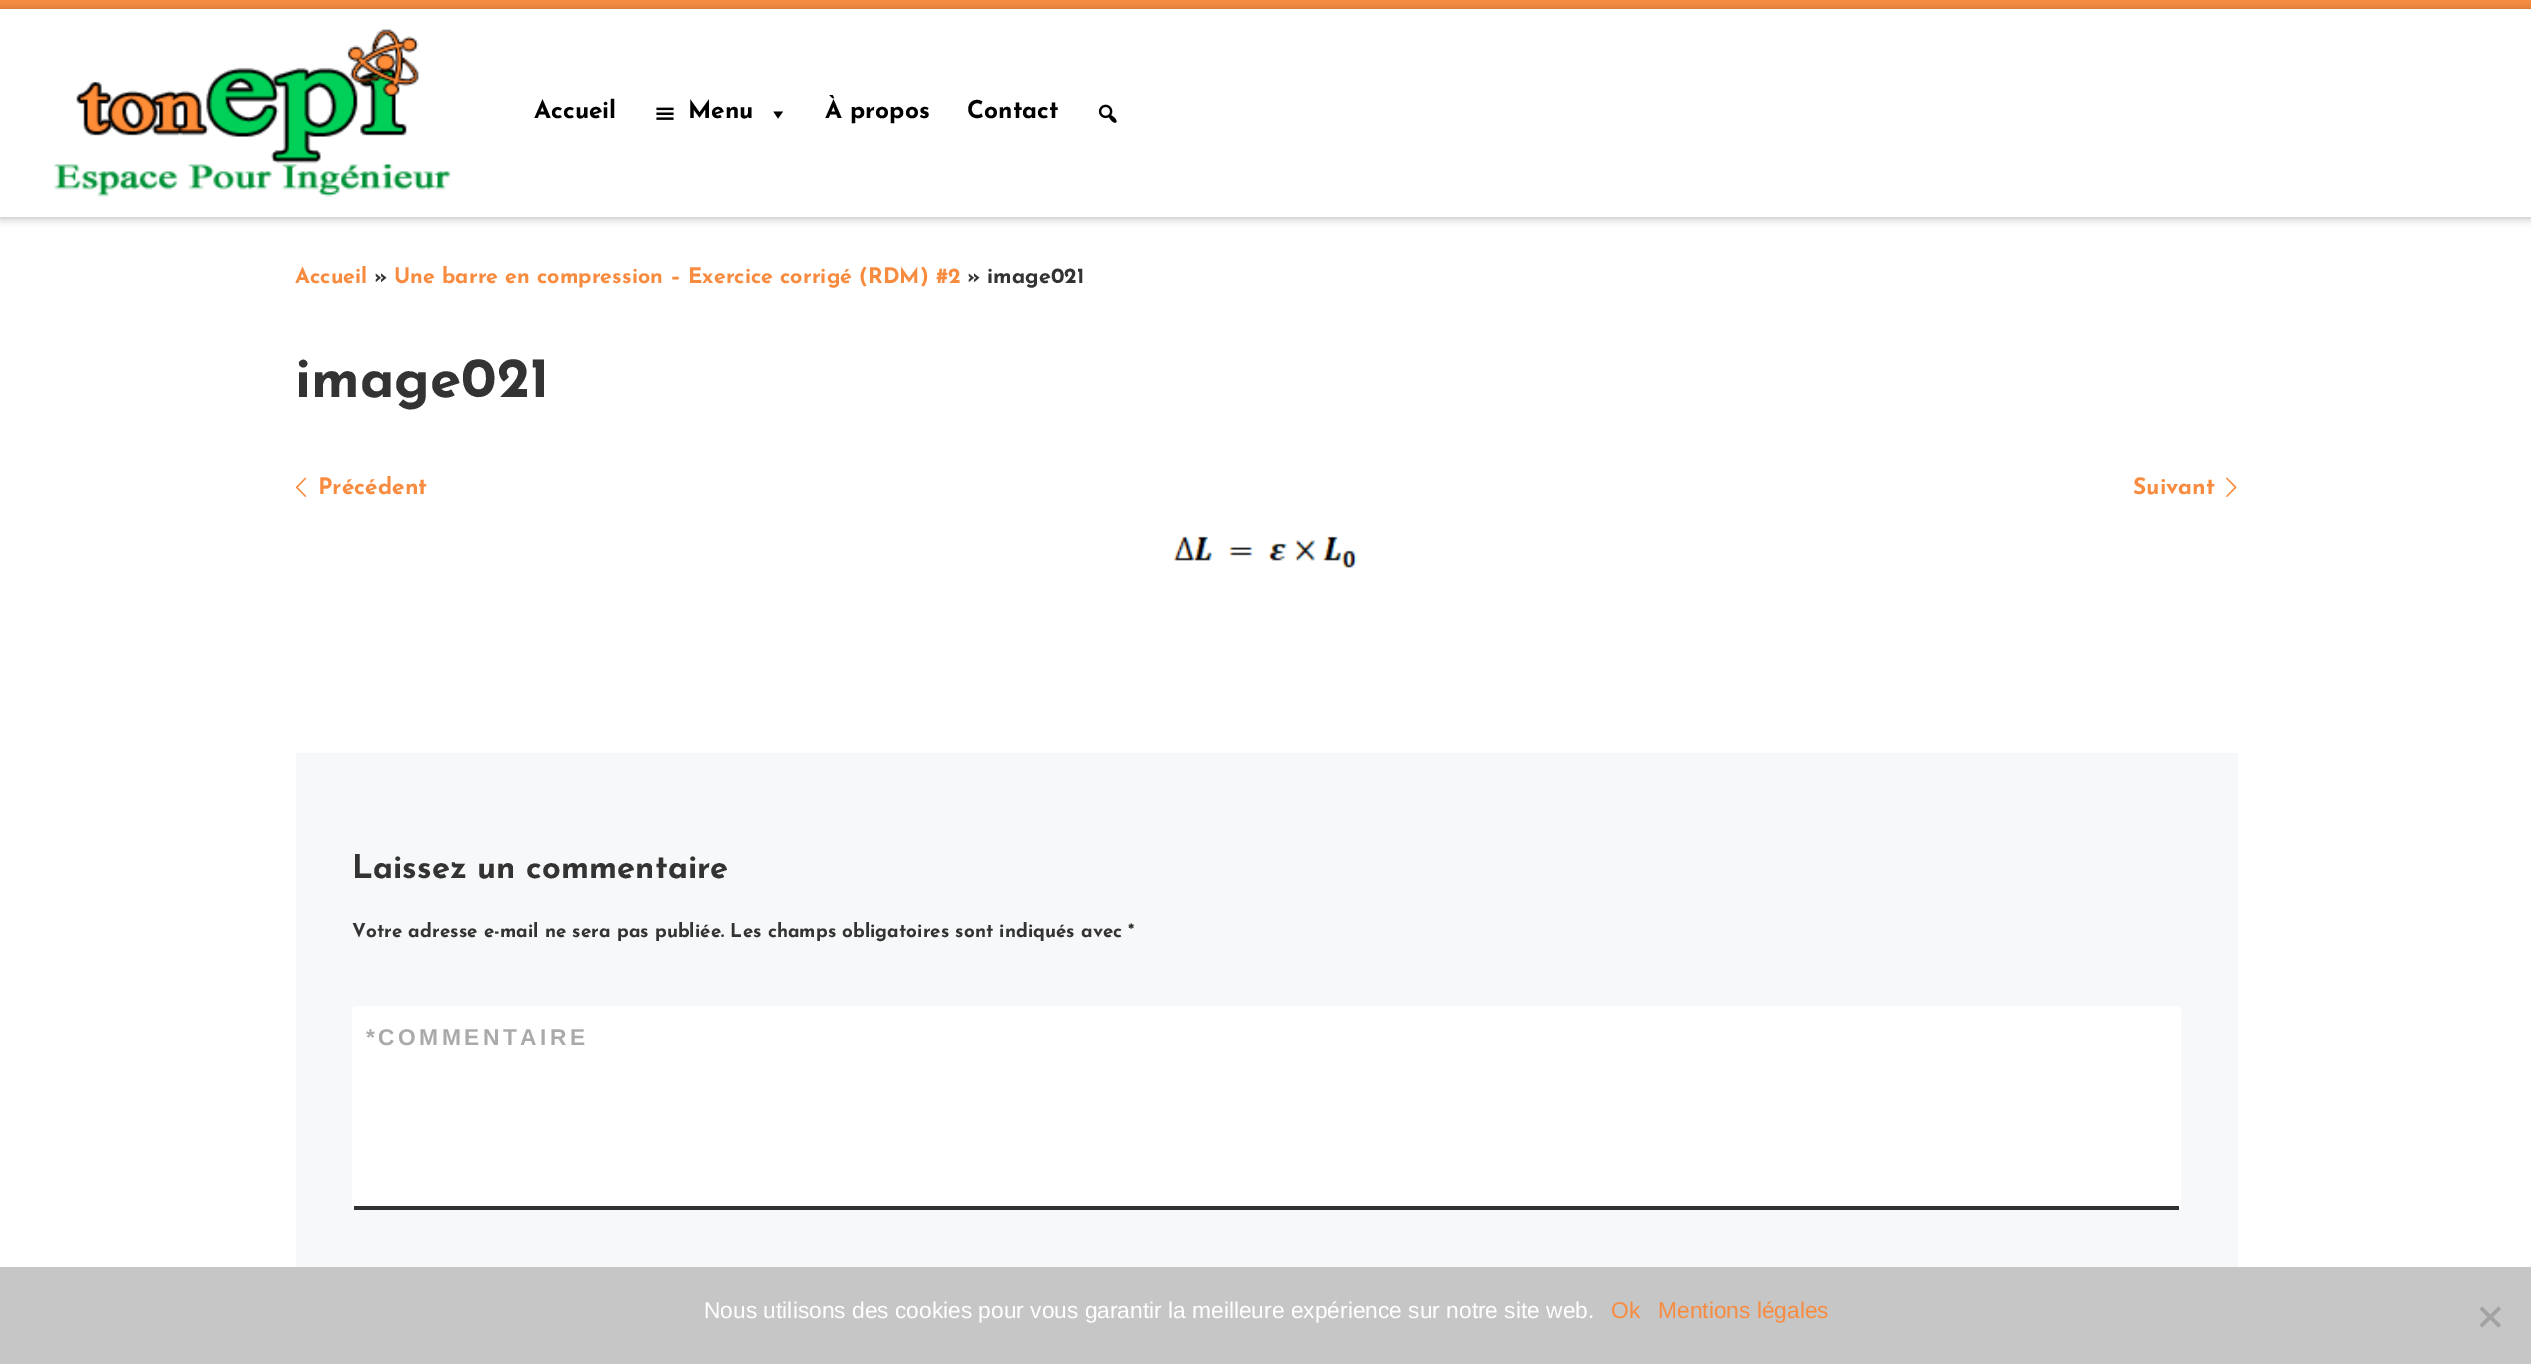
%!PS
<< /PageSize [2531 1364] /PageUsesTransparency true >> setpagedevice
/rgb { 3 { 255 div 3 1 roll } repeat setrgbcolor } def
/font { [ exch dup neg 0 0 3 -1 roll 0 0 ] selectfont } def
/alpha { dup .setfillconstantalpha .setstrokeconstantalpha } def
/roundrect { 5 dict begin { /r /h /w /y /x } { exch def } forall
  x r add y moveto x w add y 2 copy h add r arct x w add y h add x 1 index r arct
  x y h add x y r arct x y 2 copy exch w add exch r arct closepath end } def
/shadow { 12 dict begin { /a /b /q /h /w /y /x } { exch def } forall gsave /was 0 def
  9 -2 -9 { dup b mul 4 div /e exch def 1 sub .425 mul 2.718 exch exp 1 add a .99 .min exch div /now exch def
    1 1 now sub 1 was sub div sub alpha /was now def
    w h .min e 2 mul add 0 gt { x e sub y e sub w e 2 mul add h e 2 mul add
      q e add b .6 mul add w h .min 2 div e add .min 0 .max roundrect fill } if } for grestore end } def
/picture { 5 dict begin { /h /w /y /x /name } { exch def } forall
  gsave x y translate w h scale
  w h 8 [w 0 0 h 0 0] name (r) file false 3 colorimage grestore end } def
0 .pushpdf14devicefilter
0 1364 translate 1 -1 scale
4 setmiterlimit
255 255 255 rgb
0 0 2531 1364 rectfill
102 102 102 rgb
0 4 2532 218 0 2 0.08 shadow
[
  [0 9 2531 208 255 255 255]
  [0 0 2531 9 247 140 64]
  [0 217 2531 2 239 239 239]
] { aload pop rgb rectfill } forall
gsave
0 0 moveto 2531 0 lineto 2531 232 lineto 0 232 lineto closepath 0 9 moveto 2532 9 lineto 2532 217 lineto 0 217 lineto closepath eoclip newpath
0 0 0 rgb
0 9 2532 208 0 4.5 0.2 shadow
grestore
(img/1.rgb) 54 29 397 168 picture
(img/2.rgb) 656 107 18 13 picture
0 0 0 rgb
783 111.5 moveto 778 118.5 lineto 773.5 111.5 lineto closepath fill
(img/3.rgb) 1098 104 19 19 picture
(img/4.rgb) 295 477 12 20 picture
(img/5.rgb) 2226 477 11 20 picture
(img/6.rgb) 1174 536 183 32 picture
247 248 249 rgb
296 753 1942 514 rectfill
255 255 255 rgb
352 1006 1829 203 4 roundrect fill
49 49 49 rgb
354 1206 1825 4 rectfill
198 198 198 rgb
0 1267 2531 97 rectfill
163 163 163 rgb
2498.5 1306.5 moveto 2501 1309 lineto 2482 1327.5 lineto 2479.5 1325 lineto closepath fill
2479.5 1309 moveto 2482 1306.5 lineto 2501 1325 lineto 2498.5 1327.5 lineto closepath fill
/JosefinSans-Thin 24.5 font
0 0 0 rgb
[
  [(Accueil) 534 118]
  [(Menu) 688 118]
  [(À propos) 825 118]
  [(Contact) 967 118]
] { aload pop moveto show } forall
/JosefinSans-Thin 21.55 font
247 140 64 rgb
295 283 moveto (Accueil) show
51 51 51 rgb
374 283 moveto (») show
247 140 64 rgb
394 283 moveto (Une barre en compression – Exercice corrigé \(RDM\) #2) show
51 51 51 rgb
967 283 moveto (» image021) show
/JosefinSans-Thin 56.5 font
295 397 moveto (image021) show
/JosefinSans-Thin 22.75 font
247 140 64 rgb
318 494 moveto (Précédent) show
2133 494 moveto (Suivant) show
/JosefinSans-Thin 32.7 font
51 51 51 rgb
352 878 moveto (Laissez un commentaire) show
/JosefinSans-Thin 18.9 font
352 937 moveto (Votre adresse e-mail ne sera pas publiée. Les champs obligatoires sont indiqués avec *) show
/LiberationSans-Bold 22.75 font
170 170 170 rgb
366 1045 moveto 3.5 0 (*COMMENTAIRE) ashow
/LiberationSans-Regular 22.75 font
255 255 255 rgb
704 1318 moveto (Nous utilisons des cookies pour vous garantir la meilleure expérience sur notre site web.) show
247 140 64 rgb
1611 1318 moveto (Ok) show
1658 1318 moveto (Mentions légales) show
.poppdf14devicefilter showpage
